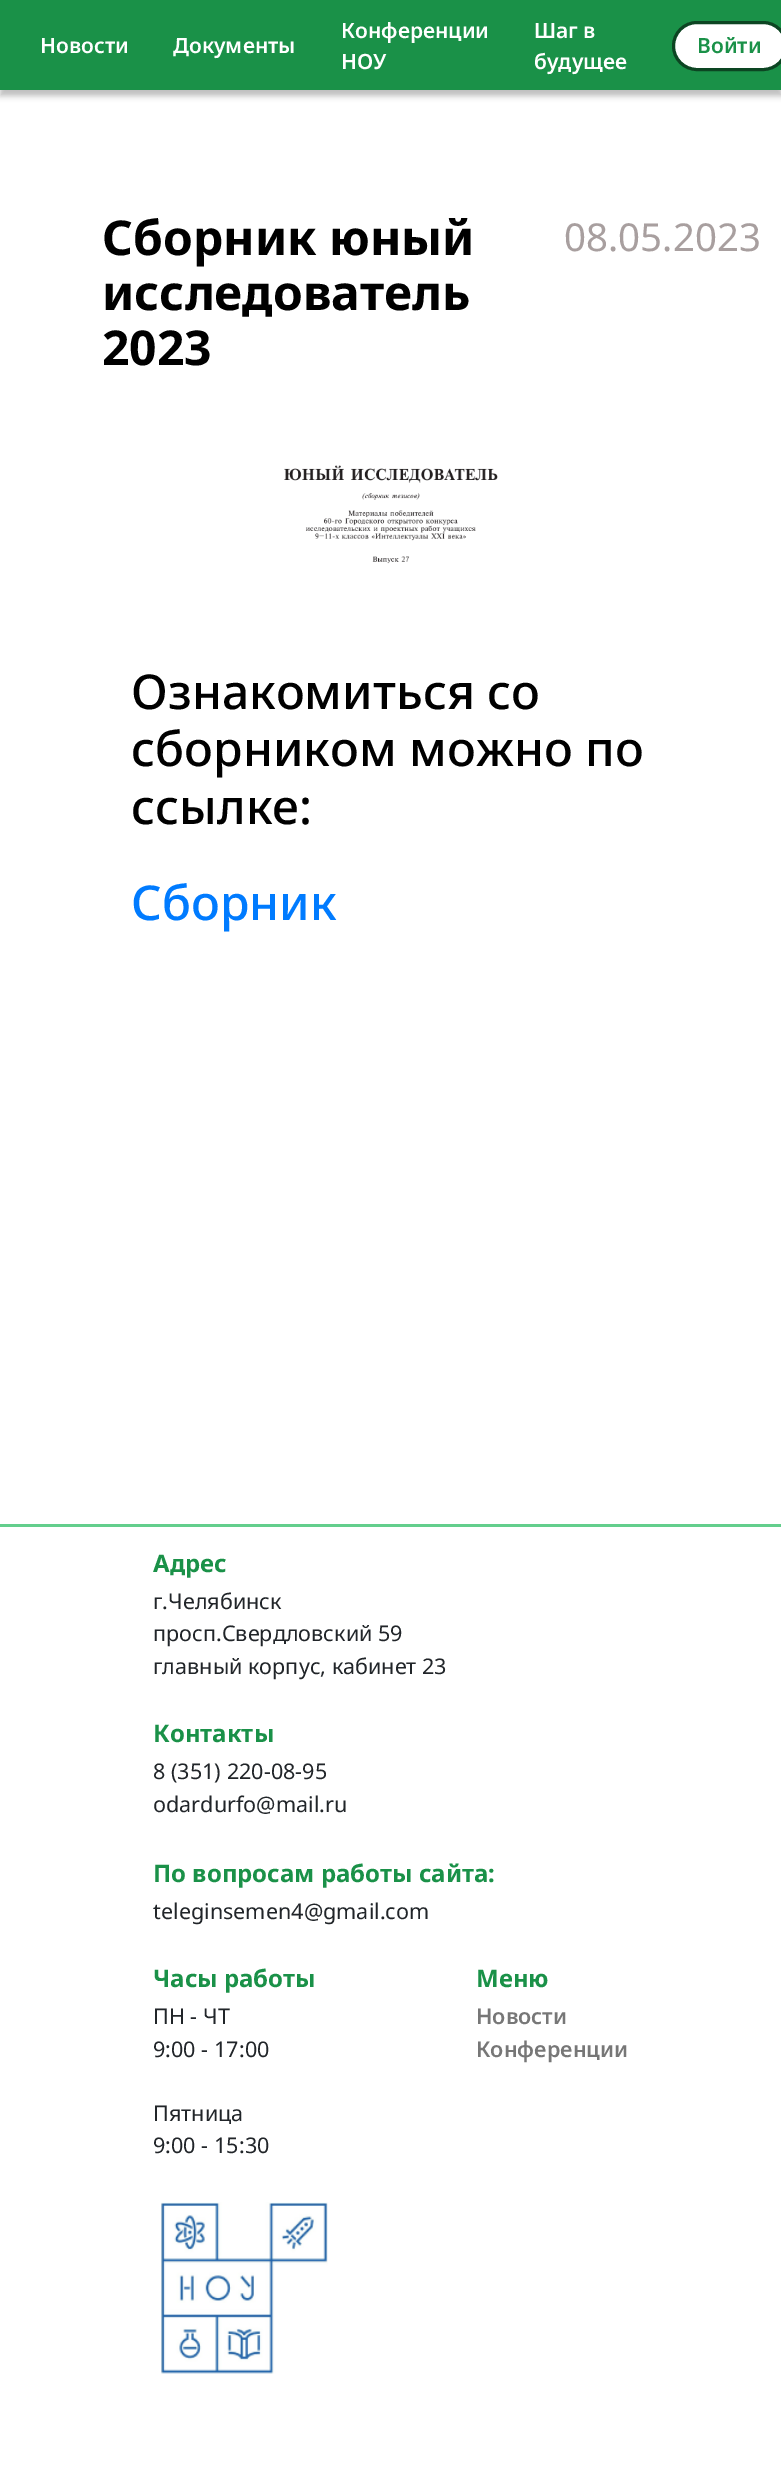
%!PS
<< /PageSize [781 2481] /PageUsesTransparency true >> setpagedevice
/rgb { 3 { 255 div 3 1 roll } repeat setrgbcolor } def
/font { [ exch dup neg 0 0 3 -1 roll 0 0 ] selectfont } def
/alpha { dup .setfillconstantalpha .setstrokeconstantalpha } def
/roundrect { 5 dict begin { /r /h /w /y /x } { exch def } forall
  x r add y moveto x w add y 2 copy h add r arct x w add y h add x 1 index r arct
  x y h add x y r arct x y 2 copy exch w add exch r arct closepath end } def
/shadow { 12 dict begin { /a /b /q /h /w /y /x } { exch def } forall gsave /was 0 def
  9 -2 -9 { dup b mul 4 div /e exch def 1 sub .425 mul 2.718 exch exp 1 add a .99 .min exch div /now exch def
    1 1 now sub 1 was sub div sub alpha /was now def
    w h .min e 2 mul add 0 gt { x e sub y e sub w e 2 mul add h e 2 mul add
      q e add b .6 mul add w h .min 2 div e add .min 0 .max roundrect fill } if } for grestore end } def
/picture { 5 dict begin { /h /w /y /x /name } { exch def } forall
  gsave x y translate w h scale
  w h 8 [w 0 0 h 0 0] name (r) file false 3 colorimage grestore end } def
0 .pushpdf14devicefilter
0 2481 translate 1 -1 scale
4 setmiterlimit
255 255 255 rgb
0 0 781 2481 rectfill
0 0 0 rgb
0 6 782 90 0 3 0.25 shadow
26 145 72 rgb
0 0 781 90 rectfill
255 255 255 rgb
673.5 22.5 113 47 23.5 roundrect gsave fill grestore
12 69 34 rgb
3 setlinewidth
stroke
(img/1.rgb) 284 465 214 99 picture
99 206 140 rgb
0 1524 781 3 rectfill
(img/2.rgb) 161 2202 167 172 picture
/NotoSans-SemiBold 21 font
255 255 255 rgb
[
  [(Новости) 40 53]
  [(Документы) 173 53]
  [(Конференции) 341 38]
  [(НОУ) 341 69]
  [(Шаг в) 534 38]
  [(будущее) 534 69]
] { aload pop moveto show } forall
26 145 72 rgb
697 53 moveto (Войти) show
/NotoSans-Bold 48 font
0 0 0 rgb
[
  [(Сборник юный) 102 255]
  [(исследователь) 102 310]
  [(2023) 102 365]
] { aload pop moveto show } forall
/NotoSans-Regular 38.5 font
168 159 159 rgb
564 251 moveto (08.05.2023) show
/NotoSans-Medium 48 font
0 0 0 rgb
[
  [(Ознакомиться со) 131 709]
  [(сборником можно по) 131 766]
  [(ссылке:) 131 824]
] { aload pop moveto show } forall
0 123 255 rgb
131 920 moveto (Сборник) show
/NotoSans-Bold 24 font
26 145 72 rgb
153 1572 moveto (Адрес) show
/NotoSans-Regular 21.6 font
33 37 41 rgb
[
  [(г.Челябинск) 153 1609]
  [(просп.Свердловский 59) 153 1641]
  [(главный корпус, кабинет 23) 153 1674]
] { aload pop moveto show } forall
/NotoSans-Bold 24 font
26 145 72 rgb
153 1742 moveto (Контакты) show
/NotoSans-Regular 21.6 font
33 37 41 rgb
153 1779 moveto (8 \(351\) 220-08-95) show
153 1812 moveto (odardurfo@mail.ru) show
/NotoSans-Bold 24 font
26 145 72 rgb
153 1882 moveto (По вопросам работы сайта:) show
/NotoSans-Regular 21.6 font
33 37 41 rgb
153 1919 moveto (teleginsemen4@gmail.com) show
/NotoSans-Bold 24 font
26 145 72 rgb
153 1987 moveto (Часы работы) show
/NotoSans-Regular 21.6 font
33 37 41 rgb
[
  [(ПН - ЧТ) 153 2024]
  [(9:00 - 17:00) 153 2057]
  [(Пятница) 153 2121]
  [(9:00 - 15:30) 153 2153]
] { aload pop moveto show } forall
/NotoSans-Bold 24 font
26 145 72 rgb
476 1987 moveto (Меню) show
/NotoSans-SemiBold 21.6 font
119 119 119 rgb
476 2024 moveto (Новости) show
476 2057 moveto (Конференции) show
.poppdf14devicefilter showpage
